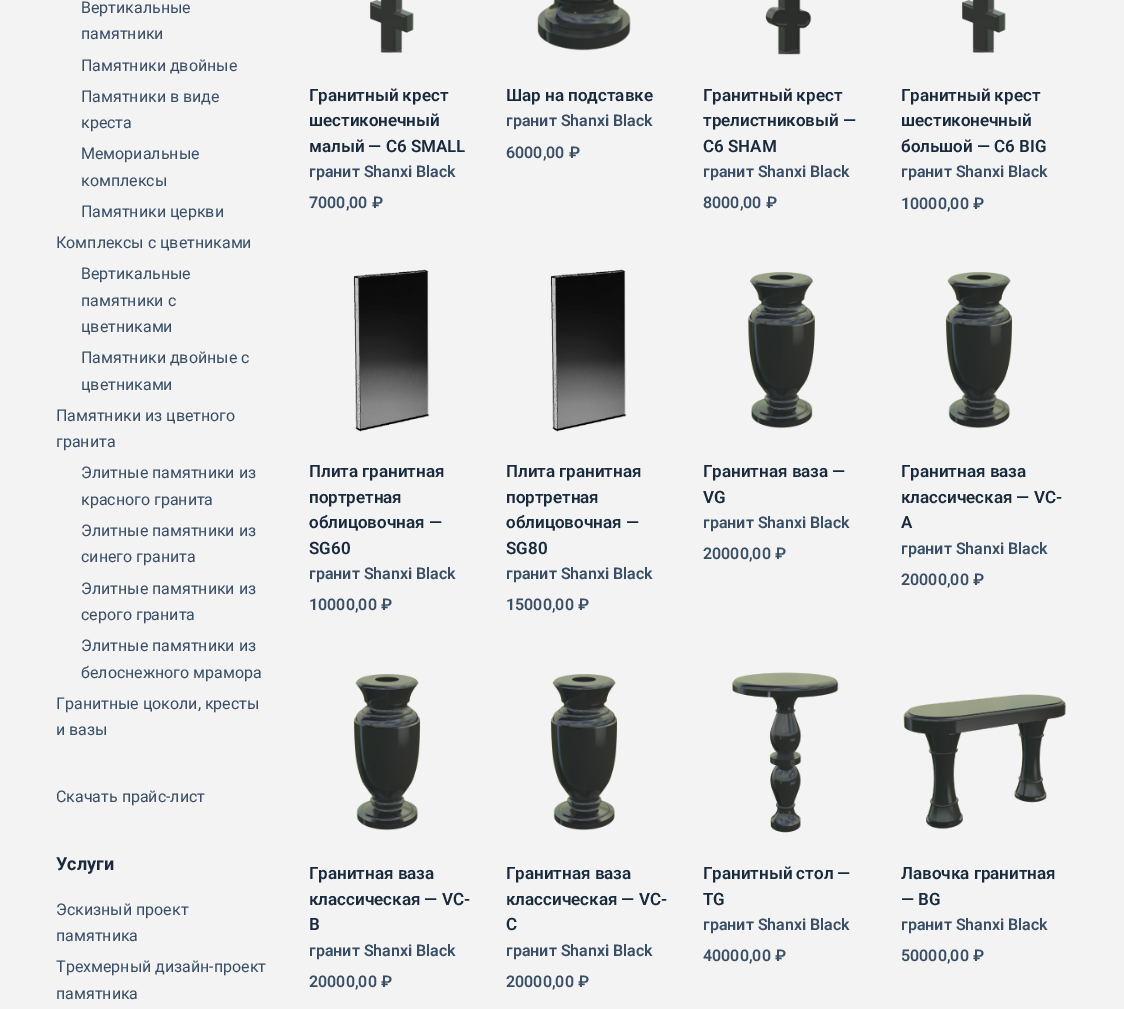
%!PS
<< /PageSize [1124 1009] >> setpagedevice
/rgb { 3 { 255 div 3 1 roll } repeat setrgbcolor } def
/font { [ exch dup neg 0 0 3 -1 roll 0 0 ] selectfont } def
/picture { 5 dict begin { /h /w /y /x /name } { exch def } forall
  gsave x y translate w h scale
  w h 8 [w 0 0 h 0 0] name (r) file false 3 colorimage grestore end } def
0 1009 translate 1 -1 scale
4 setmiterlimit
243 243 243 rgb
0 0 1124 1009 rectfill
(img/1.rgb) 369 0 45 53 picture
(img/2.rgb) 537 0 94 51 picture
(img/3.rgb) 765 0 47 55 picture
(img/1.rgb) 961 0 45 53 picture
(img/4.rgb) 353 269 77 163 picture
(img/4.rgb) 550 269 77 163 picture
(img/5.rgb) 747 272 68 157 picture
(img/6.rgb) 945 272 68 157 picture
(img/6.rgb) 353 674 68 157 picture
(img/6.rgb) 550 674 68 157 picture
(img/7.rgb) 732 672 107 161 picture
(img/8.rgb) 903 694 163 135 picture
/Roboto-Regular 16 font
58 79 102 rgb
[
  [(Вертикальные) 81 13]
  [(памятники) 81 39]
  [(Памятники двойные) 81 71]
  [(Памятники в виде) 81 102]
  [(креста) 81 128]
  [(Мемориальные) 81 159]
  [(комплексы) 81 186]
  [(Памятники церкви) 81 217]
  [(Комплексы с цветниками) 56 248]
  [(Вертикальные) 81 279]
  [(памятники с) 81 306]
  [(цветниками) 81 332]
  [(Памятники двойные с) 81 363]
  [(цветниками) 81 390]
  [(Памятники из цветного) 56 421]
  [(гранита) 56 447]
  [(Элитные памятники из) 81 478]
  [(красного гранита) 81 505]
  [(Элитные памятники из) 81 536]
  [(синего гранита) 81 562]
  [(Элитные памятники из) 81 594]
  [(серого гранита) 81 620]
  [(Элитные памятники из) 81 651]
  [(белоснежного мрамора) 81 678]
  [(Гранитные цоколи, кресты) 56 709]
  [(и вазы) 56 735]
  [(Скачать прайс-лист) 56 802]
] { aload pop moveto show } forall
/Roboto-Bold 18 font
25 42 61 rgb
56 870 moveto (Услуги) show
/Roboto-Regular 16 font
58 79 102 rgb
[
  [(Эскизный проект) 56 915]
  [(памятника) 56 941]
  [(Трехмерный дизайн-проект) 56 972]
  [(памятника) 56 999]
] { aload pop moveto show } forall
/Roboto-SemiBold 17 font
25 42 61 rgb
[
  [(Гранитный крест) 309 101]
  [(шестиконечный) 309 126]
  [(малый — C6 SMALL) 309 152]
] { aload pop moveto show } forall
/Roboto-SemiBold 16 font
58 79 102 rgb
309 177 moveto (гранит Shanxi Black) show
309 208 moveto (7000,00 ₽) show
/Roboto-SemiBold 17 font
25 42 61 rgb
506 101 moveto (Шар на подставке) show
/Roboto-SemiBold 16 font
58 79 102 rgb
506 126 moveto (гранит Shanxi Black) show
506 158 moveto (6000,00 ₽) show
/Roboto-SemiBold 17 font
25 42 61 rgb
[
  [(Гранитный крест) 703 101]
  [(трелистниковый —) 703 126]
  [(C6 SHAM) 703 152]
] { aload pop moveto show } forall
/Roboto-SemiBold 16 font
58 79 102 rgb
703 177 moveto (гранит Shanxi Black) show
703 208 moveto (8000,00 ₽) show
/Roboto-SemiBold 17 font
25 42 61 rgb
[
  [(Гранитный крест) 901 101]
  [(шестиконечный) 901 126]
  [(большой — C6 BIG) 901 152]
] { aload pop moveto show } forall
/Roboto-SemiBold 16 font
58 79 102 rgb
901 177 moveto (гранит Shanxi Black) show
901 209 moveto (10000,00 ₽) show
/Roboto-SemiBold 17 font
25 42 61 rgb
[
  [(Плита гранитная) 309 477]
  [(портретная) 309 503]
  [(облицовочная —) 309 528]
  [(SG60) 309 554]
] { aload pop moveto show } forall
/Roboto-SemiBold 16 font
58 79 102 rgb
309 579 moveto (гранит Shanxi Black) show
309 610 moveto (10000,00 ₽) show
/Roboto-SemiBold 17 font
25 42 61 rgb
[
  [(Плита гранитная) 506 477]
  [(портретная) 506 503]
  [(облицовочная —) 506 528]
  [(SG80) 506 554]
] { aload pop moveto show } forall
/Roboto-SemiBold 16 font
58 79 102 rgb
506 579 moveto (гранит Shanxi Black) show
506 610 moveto (15000,00 ₽) show
/Roboto-SemiBold 17 font
25 42 61 rgb
703 477 moveto (Гранитная ваза —) show
703 503 moveto (VG) show
/Roboto-SemiBold 16 font
58 79 102 rgb
703 528 moveto (гранит Shanxi Black) show
703 559 moveto (20000,00 ₽) show
/Roboto-SemiBold 17 font
25 42 61 rgb
[
  [(Гранитная ваза) 901 477]
  [(классическая — VC-) 901 503]
  [(A) 901 528]
] { aload pop moveto show } forall
/Roboto-SemiBold 16 font
58 79 102 rgb
901 554 moveto (гранит Shanxi Black) show
901 585 moveto (20000,00 ₽) show
/Roboto-SemiBold 17 font
25 42 61 rgb
[
  [(Гранитная ваза) 309 879]
  [(классическая — VC-) 309 905]
  [(B) 309 930]
] { aload pop moveto show } forall
/Roboto-SemiBold 16 font
58 79 102 rgb
309 956 moveto (гранит Shanxi Black) show
309 987 moveto (20000,00 ₽) show
/Roboto-SemiBold 17 font
25 42 61 rgb
[
  [(Гранитная ваза) 506 879]
  [(классическая — VC-) 506 905]
  [(C) 506 930]
] { aload pop moveto show } forall
/Roboto-SemiBold 16 font
58 79 102 rgb
506 956 moveto (гранит Shanxi Black) show
506 987 moveto (20000,00 ₽) show
/Roboto-SemiBold 17 font
25 42 61 rgb
703 879 moveto (Гранитный стол —) show
703 905 moveto (TG) show
/Roboto-SemiBold 16 font
58 79 102 rgb
703 930 moveto (гранит Shanxi Black) show
703 961 moveto (40000,00 ₽) show
/Roboto-SemiBold 17 font
25 42 61 rgb
901 879 moveto (Лавочка гранитная) show
901 905 moveto (— BG) show
/Roboto-SemiBold 16 font
58 79 102 rgb
901 930 moveto (гранит Shanxi Black) show
901 961 moveto (50000,00 ₽) show
showpage
